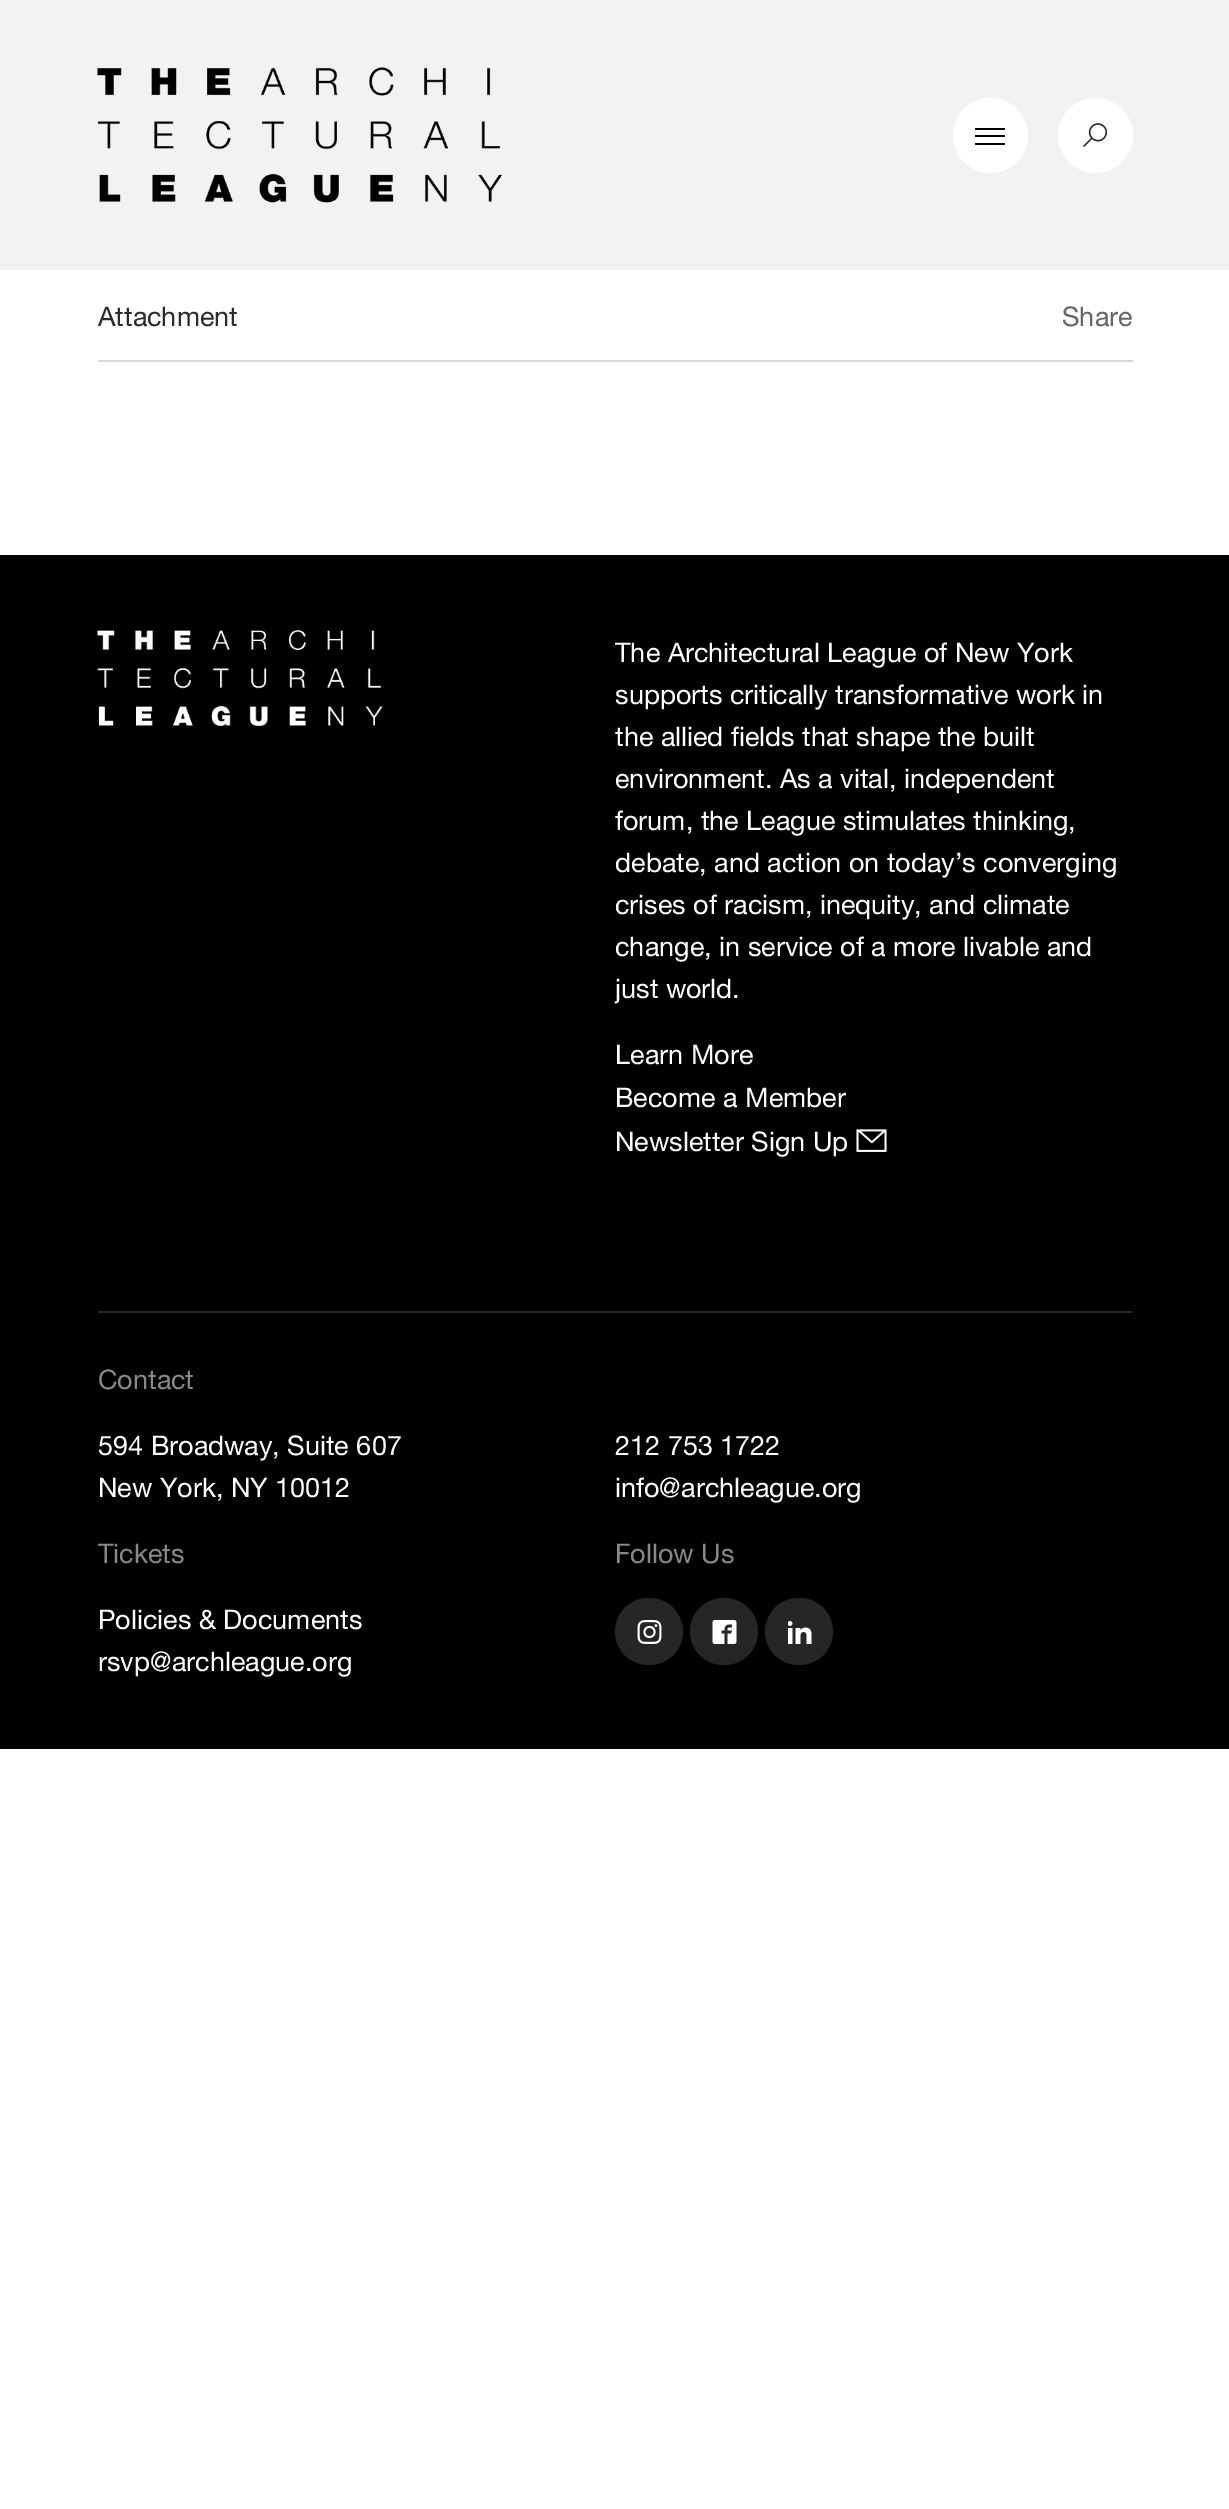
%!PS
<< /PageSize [1229 2509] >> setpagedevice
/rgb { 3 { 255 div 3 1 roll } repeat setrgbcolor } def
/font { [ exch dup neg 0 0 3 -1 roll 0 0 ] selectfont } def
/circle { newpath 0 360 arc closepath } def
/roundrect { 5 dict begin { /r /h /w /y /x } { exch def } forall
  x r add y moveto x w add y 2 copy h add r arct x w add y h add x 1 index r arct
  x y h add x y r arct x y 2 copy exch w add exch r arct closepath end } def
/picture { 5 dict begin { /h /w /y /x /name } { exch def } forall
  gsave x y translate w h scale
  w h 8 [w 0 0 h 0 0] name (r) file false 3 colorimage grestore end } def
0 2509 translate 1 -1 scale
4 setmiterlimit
255 255 255 rgb
0 0 1229 2509 rectfill
242 242 242 rgb
0 0 1229 270 rectfill
(img/1.rgb) 97 67 406 136 picture
255 255 255 rgb
990.5 135.5 37.5 circle fill
0 0 0 rgb
975 128 30 2 1 roundrect fill
975 135 30 2 1 roundrect fill
975 143 30 2 1 roundrect fill
255 255 255 rgb
1095.5 135.5 37.5 circle fill
(img/2.rgb) 1083 123 25 24 picture
216 216 216 rgb
98 360 1035 2 rectfill
0 0 0 rgb
0 555 1229 1194 rectfill
(img/3.rgb) 97 630 286 96 picture
(img/4.rgb) 856 1129 31 23 picture
38 38 38 rgb
98 1311 1035 2 rectfill
615 1598 68 67 33.5 roundrect fill
(img/5.rgb) 637 1620 25 24 picture
690 1598 68 67 33.5 roundrect fill
(img/6.rgb) 712 1620 25 24 picture
765 1598 68 67 33.5 roundrect fill
(img/7.rgb) 788 1621 24 23 picture
/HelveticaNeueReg-Regular 27 font
41 43 44 rgb
98 326 moveto (Attachment) show
102 102 102 rgb
1062 326 moveto (Share) show
255 255 255 rgb
[
  [(The Architectural League of New York) 615 662]
  [(supports critically transformative work in) 615 704]
  [(the allied fields that shape the built) 615 746]
  [(environment. As a vital, independent) 615 788]
  [(forum, the League stimulates thinking,) 615 830]
  [(debate, and action on today’s converging) 615 872]
  [(crises of racism, inequity, and climate) 615 914]
  [(change, in service of a more livable and) 615 956]
  [(just world.) 615 998]
  [(Learn More) 615 1064]
  [(Become a Member) 615 1107]
  [(Newsletter Sign Up) 615 1151]
] { aload pop moveto show } forall
136 136 136 rgb
98 1389 moveto (Contact) show
255 255 255 rgb
[
  [(594 Broadway, Suite 607) 98 1455]
  [(New York, NY 10012) 98 1497]
  [(212 753 1722) 615 1455]
  [(info@archleague.org) 615 1497]
] { aload pop moveto show } forall
136 136 136 rgb
98 1563 moveto (Tickets) show
255 255 255 rgb
98 1629 moveto (Policies & Documents) show
98 1671 moveto (rsvp@archleague.org) show
136 136 136 rgb
615 1563 moveto (Follow Us) show
showpage
